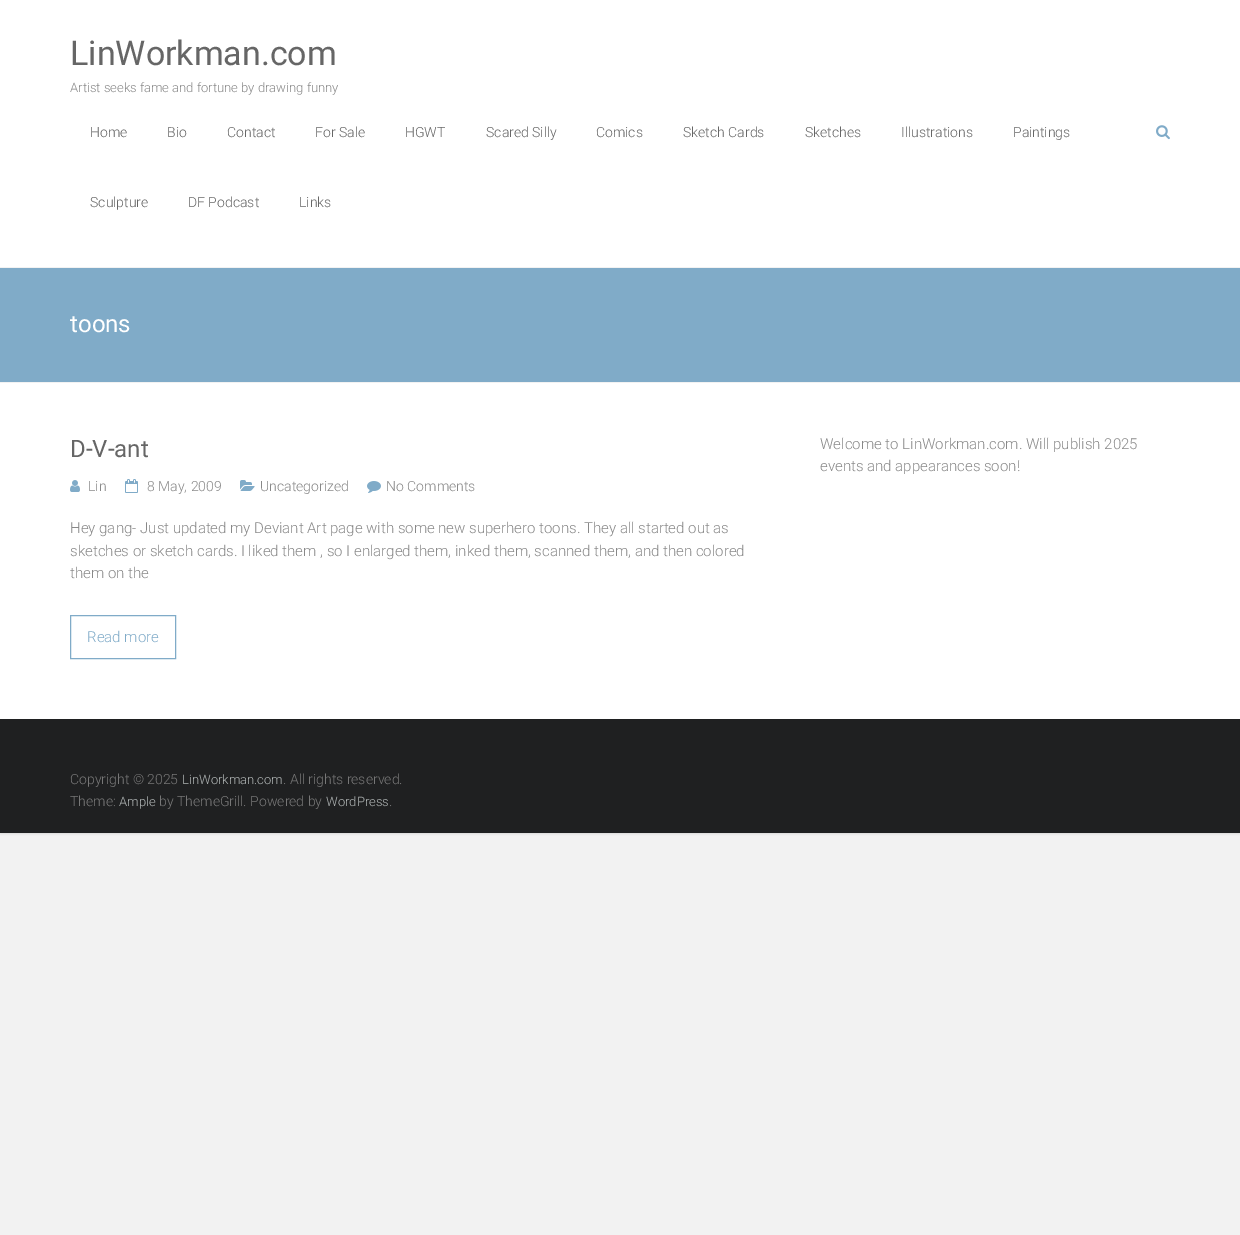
%!PS
<< /PageSize [1240 1235] /PageUsesTransparency true >> setpagedevice
/rgb { 3 { 255 div 3 1 roll } repeat setrgbcolor } def
/font { [ exch dup neg 0 0 3 -1 roll 0 0 ] selectfont } def
/alpha { dup .setfillconstantalpha .setstrokeconstantalpha } def
/roundrect { 5 dict begin { /r /h /w /y /x } { exch def } forall
  x r add y moveto x w add y 2 copy h add r arct x w add y h add x 1 index r arct
  x y h add x y r arct x y 2 copy exch w add exch r arct closepath end } def
/shadow { 12 dict begin { /a /b /q /h /w /y /x } { exch def } forall gsave /was 0 def
  9 -2 -9 { dup b mul 4 div /e exch def 1 sub .425 mul 2.718 exch exp 1 add a .99 .min exch div /now exch def
    1 1 now sub 1 was sub div sub alpha /was now def
    w h .min e 2 mul add 0 gt { x e sub y e sub w e 2 mul add h e 2 mul add
      q e add b .6 mul add w h .min 2 div e add .min 0 .max roundrect fill } if } for grestore end } def
/picture { 5 dict begin { /h /w /y /x /name } { exch def } forall
  gsave x y translate w h scale
  w h 8 [w 0 0 h 0 0] name (r) file false 3 colorimage grestore end } def
0 .pushpdf14devicefilter
0 1235 translate 1 -1 scale
4 setmiterlimit
242 242 242 rgb
0 0 1240 1235 rectfill
0 0 0 rgb
0 1 1240 833 0 1 0.1 shadow
255 255 255 rgb
0 0 1240 719 rectfill
242 242 242 rgb
0 267 1240 1 rectfill
(img/1.rgb) 1156 125 14 15 picture
128 171 200 rgb
0 268 1240 114 rectfill
242 242 242 rgb
0 382 1240 1 rectfill
(img/2.rgb) 70 480 10 12 picture
(img/3.rgb) 125 479 13 14 picture
(img/4.rgb) 240 480 15 11 picture
(img/5.rgb) 367 481 14 12 picture
128 171 200 rgb
70.5 615.5 105 43 rectstroke
31 32 33 rgb
0 719 1240 114 rectfill
/Roboto-Regular 34 font
102 102 102 rgb
70 65 moveto (LinWorkman.com) show
/Roboto-Light 13 font
136 136 136 rgb
70 92 moveto (Artist seeks fame and fortune by drawing funny) show
/Roboto-Light 14 font
102 102 102 rgb
[
  [(Home) 90 137]
  [(Bio) 167 137]
  [(Contact) 227 137]
  [(For Sale) 315 137]
  [(HGWT) 405 137]
  [(Scared Silly) 486 137]
  [(Comics) 596 137]
  [(Sketch Cards) 683 137]
  [(Sketches) 805 137]
  [(Illustrations) 901 137]
  [(Paintings) 1013 137]
  [(Sculpture) 90 207]
  [(DF Podcast) 188 207]
  [(Links) 299 207]
] { aload pop moveto show } forall
/Roboto-Regular 24 font
255 255 255 rgb
70 332 moveto (toons) show
102 102 102 rgb
70 457 moveto (D-V-ant) show
/Roboto-Light 14 font
136 136 136 rgb
[
  [(Lin) 88 491]
  [(8 May, 2009) 147 491]
  [(Uncategorized) 260 491]
  [(No Comments) 386 491]
] { aload pop moveto show } forall
/Roboto-Light 15 font
[
  [(Hey gang- Just updated my Deviant Art page with some new superhero toons. They all started out as) 70 533]
  [(sketches or sketch cards. I liked them , so I enlarged them, inked them, scanned them, and then colored) 70 556]
  [(them on the) 70 578]
] { aload pop moveto show } forall
128 171 200 rgb
87 642 moveto (Read more) show
136 136 136 rgb
820 449 moveto (Welcome to LinWorkman.com. Will publish 2025) show
820 471 moveto (events and appearances soon!) show
/Roboto-Light 14 font
119 119 119 rgb
70 784 moveto (Copyright © 2025) show
/Roboto-Light 13 font
177 182 182 rgb
182 784 moveto (LinWorkman.com) show
/Roboto-Light 14 font
119 119 119 rgb
283 784 moveto (. All rights reserved.) show
70 806 moveto (Theme:) show
/Roboto-Light 13 font
177 182 182 rgb
119 806 moveto (Ample) show
/Roboto-Light 14 font
119 119 119 rgb
159 806 moveto (by ThemeGrill. Powered by) show
/Roboto-Light 13 font
177 182 182 rgb
326 806 moveto (WordPress) show
/Roboto-Light 14 font
119 119 119 rgb
389 806 moveto (.) show
.poppdf14devicefilter showpage
